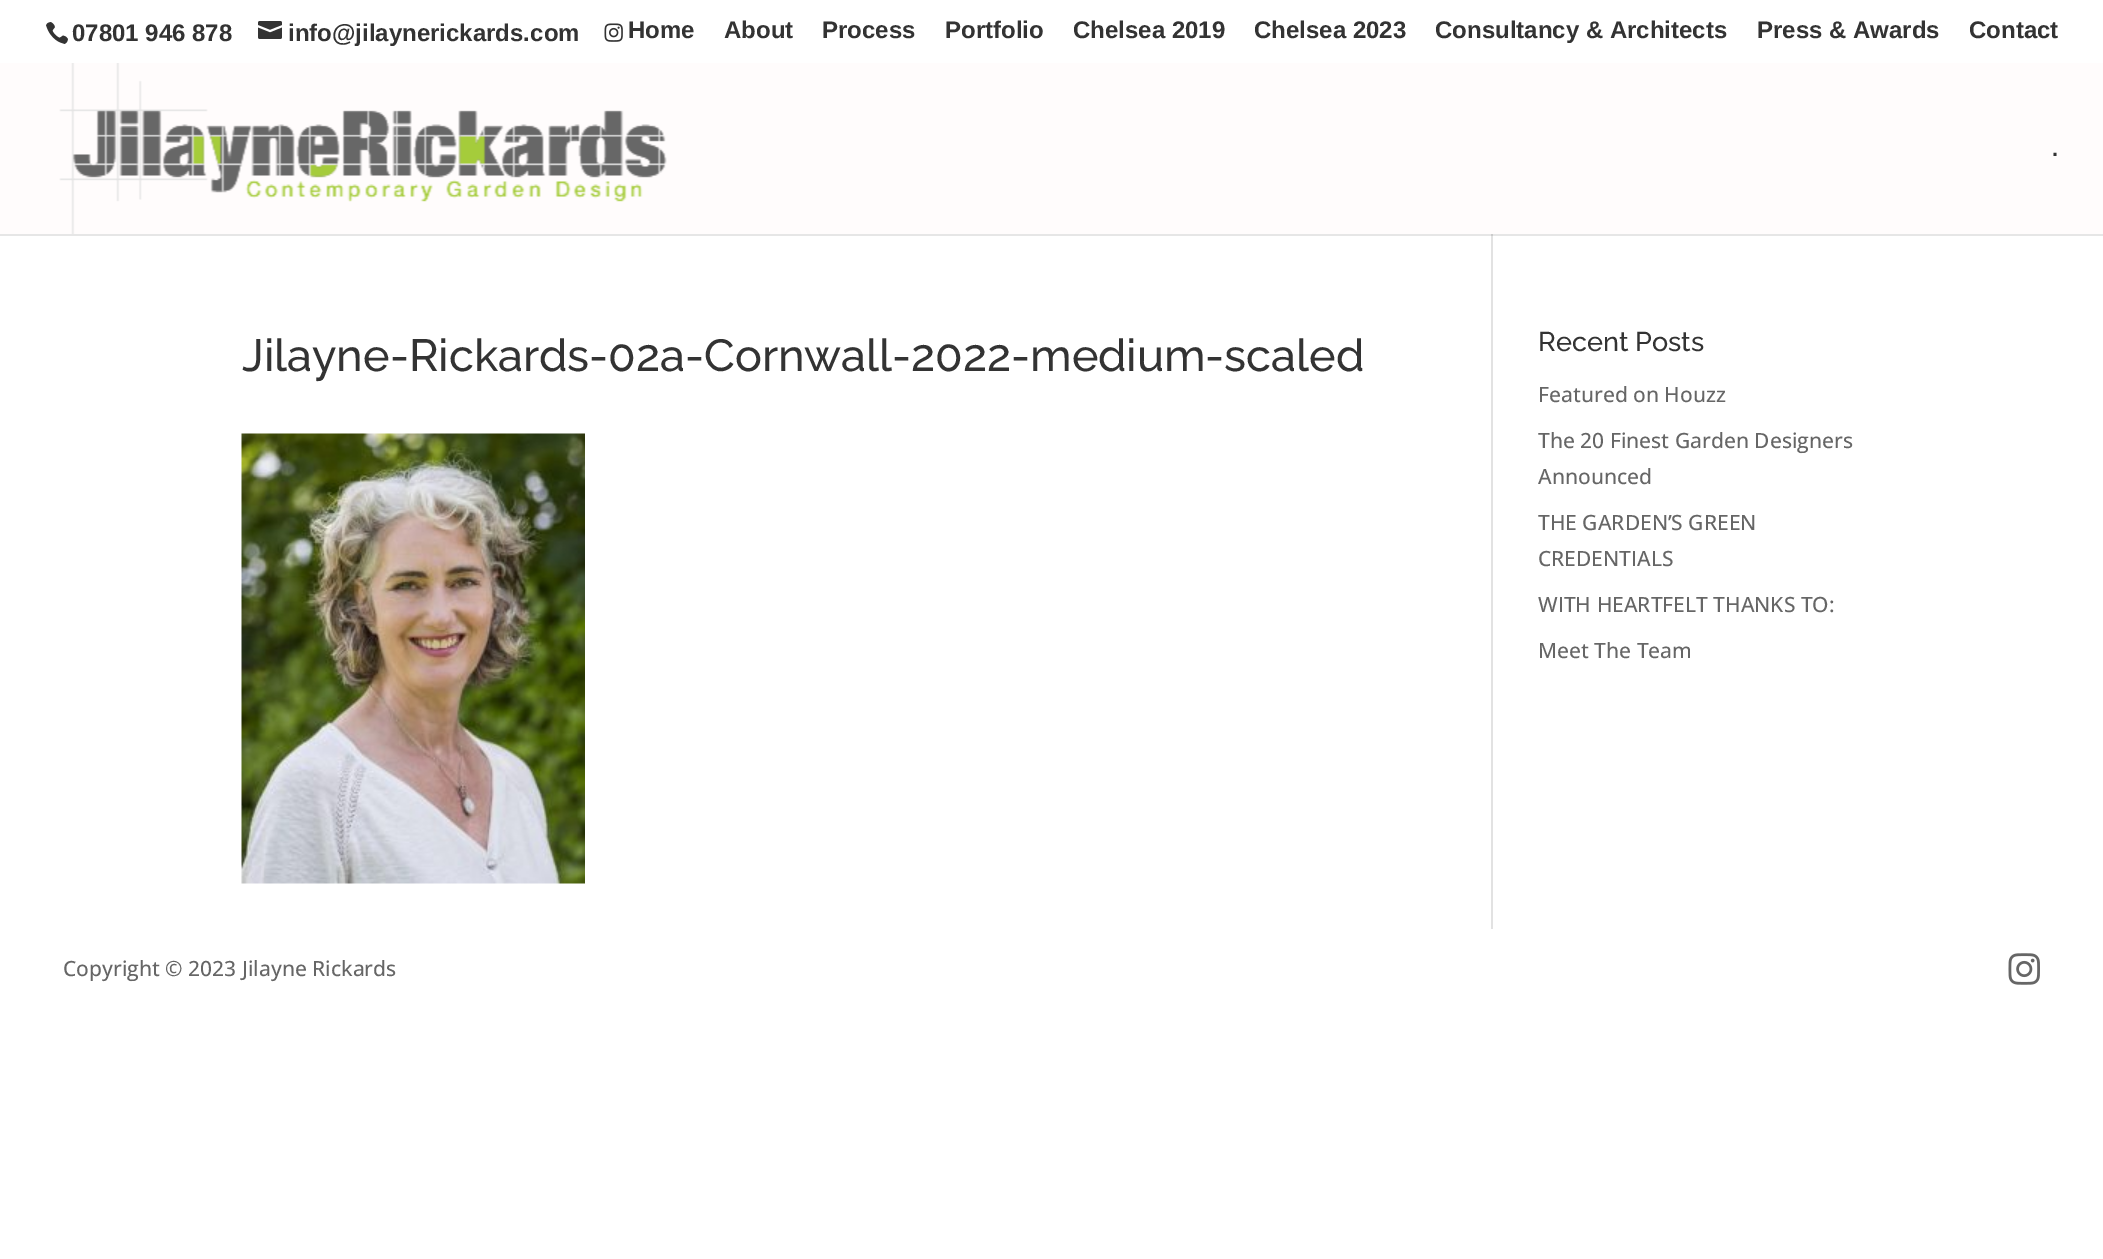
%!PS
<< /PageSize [2103 1259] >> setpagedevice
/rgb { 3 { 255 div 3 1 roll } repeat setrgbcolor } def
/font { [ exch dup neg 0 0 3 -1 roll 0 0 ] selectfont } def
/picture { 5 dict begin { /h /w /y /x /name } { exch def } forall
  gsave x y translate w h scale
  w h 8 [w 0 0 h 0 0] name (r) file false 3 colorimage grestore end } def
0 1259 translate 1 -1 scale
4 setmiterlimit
255 255 255 rgb
0 0 2103 1259 rectfill
230 230 230 rgb
0 234 2103 2 rectfill
(img/1.rgb) 46 22 22 22 picture
(img/2.rgb) 258 21 24 18 picture
(img/3.rgb) 604 23 19 19 picture
255 252 252 rgb
0 63 2103 171 rectfill
(img/4.rgb) 59 63 608 171 picture
226 226 226 rgb
1491 234 2 695 rectfill
203 203 203 rgb
1491 234 2 2 rectfill
(img/5.rgb) 241 433 344 451 picture
(img/6.rgb) 2008 953 32 32 picture
/LiberationSans-Bold 24 font
51 51 51 rgb
[
  [(07801 946 878) 72 41]
  [(info@jilaynerickards.com) 288 41]
  [(Home) 628 38]
  [(About) 724 38]
  [(Process) 822 38]
  [(Portfolio) 945 38]
  [(Chelsea 2019) 1073 38]
  [(Chelsea 2023) 1254 38]
  [(Consultancy & Architects) 1435 38]
  [(Press & Awards) 1757 38]
  [(Contact) 1969 38]
] { aload pop moveto show } forall
/LiberationSans-Bold 22 font
2052 156 moveto (.) show
/Raleway-Medium 45 font
242 371 moveto (Jilayne-Rickards-02a-Cornwall-2022-medium-scaled) show
/Raleway-Medium 27 font
1538 351 moveto (Recent Posts) show
/OpenSans-Medium 21 font
102 102 102 rgb
[
  [(Featured on Houzz) 1538 402]
  [(The 20 Finest Garden Designers) 1538 448]
  [(Announced) 1538 484]
  [(THE GARDEN’S GREEN) 1538 530]
  [(CREDENTIALS) 1538 566]
  [(WITH HEARTFELT THANKS TO:) 1538 612]
  [(Meet The Team) 1538 658]
  [(Copyright © 2023 Jilayne Rickards) 63 976]
] { aload pop moveto show } forall
showpage
